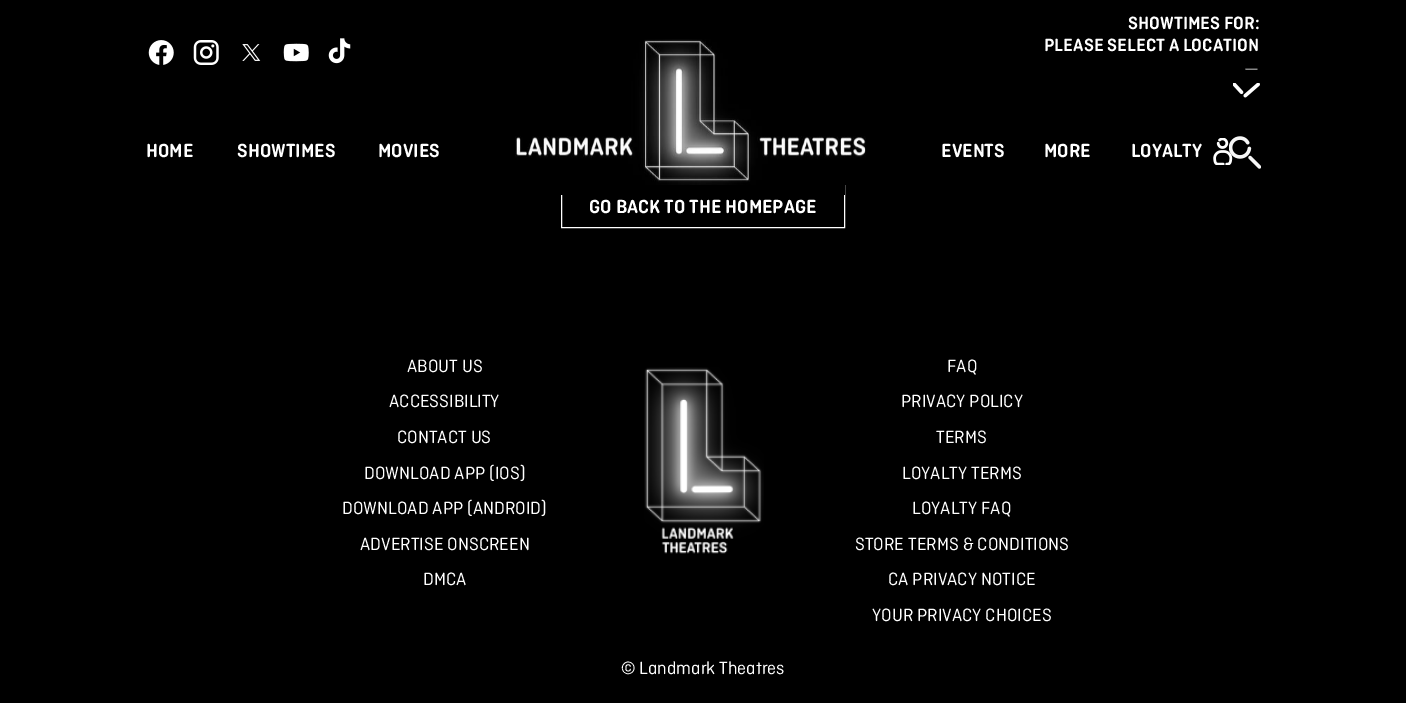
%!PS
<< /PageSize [1406 703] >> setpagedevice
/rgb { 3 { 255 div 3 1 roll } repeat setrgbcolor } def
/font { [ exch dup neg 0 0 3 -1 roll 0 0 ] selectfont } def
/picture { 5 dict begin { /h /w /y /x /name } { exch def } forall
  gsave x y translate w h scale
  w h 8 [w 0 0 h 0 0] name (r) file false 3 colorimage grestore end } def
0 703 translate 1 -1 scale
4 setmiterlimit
0 0 0 rgb
0 0 1406 703 rectfill
255 255 255 rgb
561.5 185.5 283 42 rectstroke
0 0 0 rgb
561 185 284 10 rectfill
(img/1.rgb) 148 40 26 25 picture
(img/2.rgb) 193 40 26 25 picture
(img/3.rgb) 242 44 19 17 picture
(img/4.rgb) 283 43 26 19 picture
(img/5.rgb) 328 38 23 26 picture
(img/6.rgb) 1233 83 27 15 picture
(img/7.rgb) 515 39 351 146 picture
(img/8.rgb) 1213 138 20 27 picture
(img/9.rgb) 1229 136 32 33 picture
(img/10.rgb) 644 367 120 187 picture
/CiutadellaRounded-SemiBold 18.75 font
255 255 255 rgb
1128 29 moveto (SHOWTIMES FOR:) show
1044 51 moveto (PLEASE SELECT A LOCATION) show
/CiutadellaRounded-Light 18.75 font
1244 74 moveto (—) show
/CiutadellaRounded-SemiBold 20 font
[
  [(HOME) 146 157]
  [(SHOWTIMES) 237 157]
  [(MOVIES) 378 157]
  [(EVENTS) 941 157]
  [(MORE) 1044 157]
  [(LOYALTY) 1131 157]
  [(GO BACK TO THE HOMEPAGE) 589 213]
] { aload pop moveto show } forall
/CiutadellaRounded-Regular 18.75 font
[
  [(ABOUT US) 407 372]
  [(ACCESSIBILITY) 389 407]
  [(CONTACT US) 397 443]
  [(DOWNLOAD APP \(IOS\)) 364 479]
  [(DOWNLOAD APP \(ANDROID\)) 342 514]
  [(ADVERTISE ONSCREEN) 360 550]
  [(DMCA) 423 585]
  [(FAQ) 947 372]
  [(PRIVACY POLICY) 901 407]
  [(TERMS) 936 443]
  [(LOYALTY TERMS) 902 479]
  [(LOYALTY FAQ) 912 514]
  [(STORE TERMS & CONDITIONS) 855 550]
  [(CA PRIVACY NOTICE) 888 585]
  [(YOUR PRIVACY CHOICES) 872 621]
  [(© Landmark Theatres) 621 674]
] { aload pop moveto show } forall
showpage
